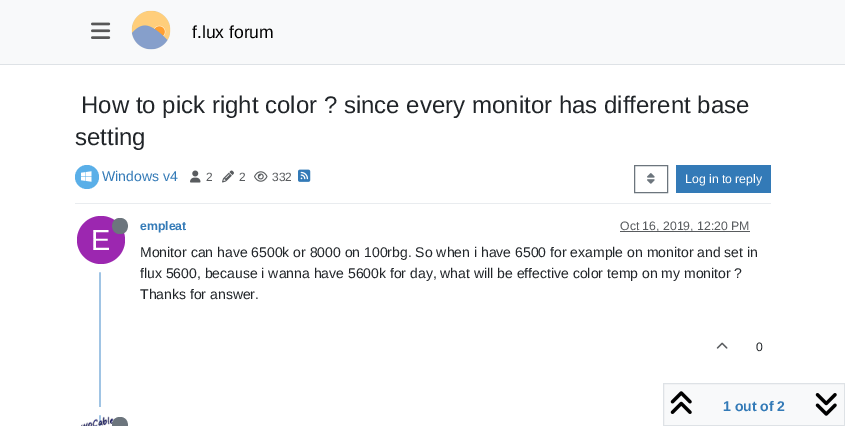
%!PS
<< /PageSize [845 426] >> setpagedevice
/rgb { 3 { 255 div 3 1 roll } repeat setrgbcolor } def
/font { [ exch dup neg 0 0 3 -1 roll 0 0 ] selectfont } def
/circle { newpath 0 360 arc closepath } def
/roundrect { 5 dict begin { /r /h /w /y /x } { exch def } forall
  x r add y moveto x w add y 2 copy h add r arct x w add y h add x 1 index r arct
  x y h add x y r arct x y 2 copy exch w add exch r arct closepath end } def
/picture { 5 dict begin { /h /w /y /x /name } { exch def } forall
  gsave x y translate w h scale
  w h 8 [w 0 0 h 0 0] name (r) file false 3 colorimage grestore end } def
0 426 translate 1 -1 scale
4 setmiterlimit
255 255 255 rgb
0 0 845 426 rectfill
248 249 250 rgb
0 0 845 64 rectfill
222 226 230 rgb
0 64 845 1 rectfill
(img/1.rgb) 91 22 20 17 picture
(img/2.rgb) 131 10 40 40 picture
233 236 239 rgb
75 203 696 1 rectfill
90 175 232 rgb
87 177 12 circle fill
(img/3.rgb) 81 171 11 11 picture
(img/4.rgb) 190 170 11 13 picture
(img/5.rgb) 222 170 12 13 picture
(img/6.rgb) 254 171 14 11 picture
(img/7.rgb) 298 169 13 13 picture
108 117 125 rgb
634.5 165.5 33 27 rectstroke
(img/8.rgb) 647 173 8 11 picture
[
  [676 165 95 28 51 122 183]
  [99 214 2 212 160 196 228]
  [620 231 130 1 89 92 95]
] { aload pop rgb rectfill } forall
255 255 255 rgb
8 setlinewidth
101 240 28 circle stroke
156 39 176 rgb
101 240 24 circle fill
108 117 125 rgb
120 234 moveto 130.5 234 130.5 218 120 218 curveto 109.5 218 109.5 234 120 234 curveto closepath fill
(img/9.rgb) 716 342 12 7 picture
255 255 255 rgb
73 411 56 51 28 roundrect stroke
(img/10.rgb) 81 416 34 10 picture
108 117 125 rgb
120 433 moveto 130.5 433 130.5 417 120 417 curveto 109.5 417 109.5 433 120 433 curveto closepath fill
248 249 250 rgb
663.5 383.5 moveto 844.5 383.5 lineto 844.5 425.5 lineto 663.5 425.5 lineto closepath gsave fill grestore
222 226 230 rgb
1 setlinewidth
stroke
(img/11.rgb) 670 391 22 23 picture
(img/12.rgb) 815 393 22 23 picture
/LiberationSans-Regular 17.5 font
0 0 0 rgb
192 38 moveto (f.lux forum) show
/LiberationSans-Regular 24 font
33 37 41 rgb
81 113 moveto (How to pick right color ? since every monitor has different base) show
75 145 moveto (setting) show
/LiberationSans-Regular 14 font
51 122 183 rgb
102 181 moveto (Windows v4) show
/LiberationSans-Regular 12 font
88 91 94 rgb
[
  [(2) 206 181]
  [(2) 239 181]
  [(332) 272 181]
] { aload pop moveto show } forall
/LiberationSans-Regular 12.25 font
255 255 255 rgb
685 183 moveto (Log in to reply) show
/LiberationSans-Bold 12.25 font
51 122 183 rgb
140 230 moveto (empleat) show
/LiberationSans-Regular 12.25 font
88 91 94 rgb
620 230 moveto (Oct 16, 2019, 12:20 PM) show
/LiberationSans-Regular 29 font
255 255 255 rgb
91 250 moveto (E) show
/LiberationSans-Regular 14 font
33 37 41 rgb
[
  [(Monitor can have 6500k or 8000 on 100rbg. So when i have 6500 for example on monitor and set in) 140 257]
  [(flux 5600, because i wanna have 5600k for day, what will be effective color temp on my monitor ?) 140 278]
  [(Thanks for answer.) 140 299]
] { aload pop moveto show } forall
/LiberationSans-Regular 12.25 font
756 351 moveto (0) show
/LiberationSans-Bold 14 font
51 122 183 rgb
723 411 moveto (1 out of 2) show
showpage
